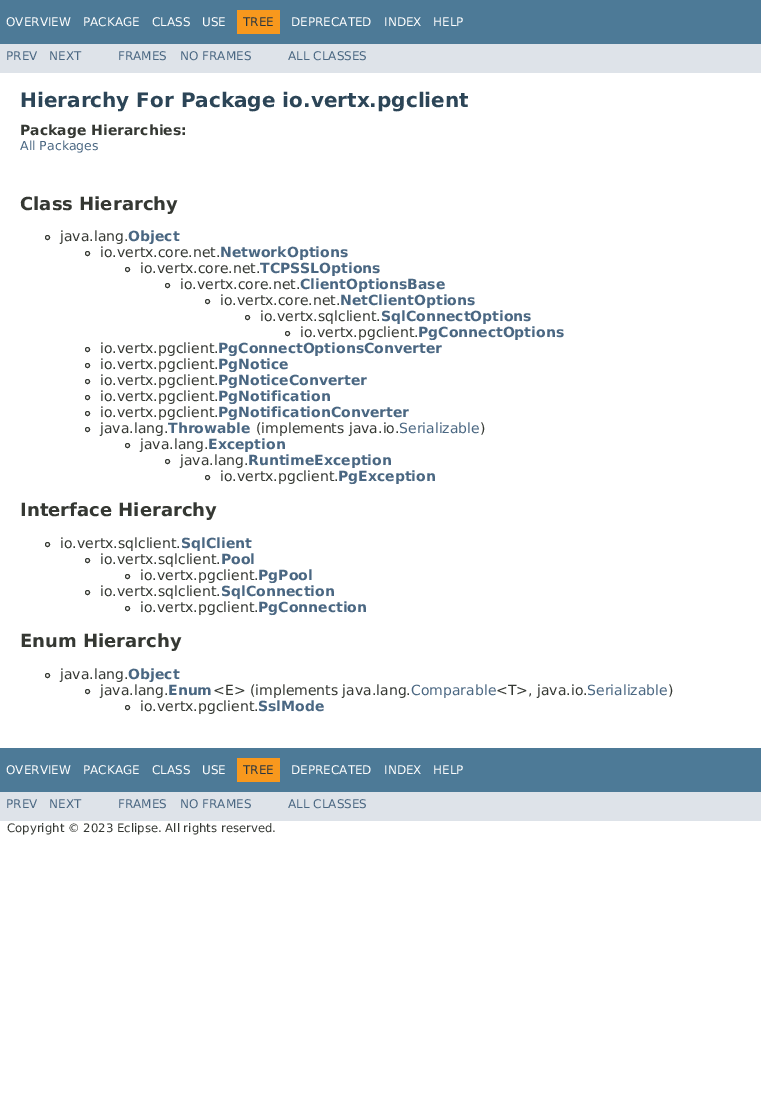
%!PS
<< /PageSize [761 1108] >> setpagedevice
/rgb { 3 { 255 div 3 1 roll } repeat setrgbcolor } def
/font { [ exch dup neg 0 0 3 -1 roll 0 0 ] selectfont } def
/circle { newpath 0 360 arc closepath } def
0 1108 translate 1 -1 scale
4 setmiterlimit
255 255 255 rgb
0 0 761 1108 rectfill
[
  [0 0 761 44 77 122 151]
  [237 10 43 24 248 152 29]
  [0 44 761 29 222 227 233]
] { aload pop rgb rectfill } forall
53 56 51 rgb
47.5 237.5 2 circle stroke
87.5 253.5 2 circle stroke
127.5 269.5 2 circle stroke
167.5 285.5 2 circle stroke
207.5 301.5 2 circle stroke
247.5 317.5 2 circle stroke
287.5 333.5 2 circle stroke
87.5 349.5 2 circle stroke
87.5 365.5 2 circle stroke
87.5 381.5 2 circle stroke
87.5 397.5 2 circle stroke
87.5 413.5 2 circle stroke
87.5 429.5 2 circle stroke
127.5 445.5 2 circle stroke
167.5 461.5 2 circle stroke
207.5 477.5 2 circle stroke
47.5 544.5 2 circle stroke
87.5 560.5 2 circle stroke
127.5 576.5 2 circle stroke
87.5 592.5 2 circle stroke
127.5 608.5 2 circle stroke
47.5 675.5 2 circle stroke
87.5 691.5 2 circle stroke
127.5 707.5 2 circle stroke
[
  [0 748 761 44 77 122 151]
  [237 758 43 24 248 152 29]
  [0 792 761 29 222 227 233]
] { aload pop rgb rectfill } forall
/DejaVuSans-Regular 12 font
255 255 255 rgb
[
  [(OVERVIEW) 6 26]
  [(PACKAGE) 83 26]
  [(CLASS) 152 26]
  [(USE) 202 26]
] { aload pop moveto show } forall
37 52 65 rgb
243 26 moveto (TREE) show
255 255 255 rgb
[
  [(DEPRECATED) 291 26]
  [(INDEX) 384 26]
  [(HELP) 433 26]
] { aload pop moveto show } forall
74 103 130 rgb
[
  [(PREV) 6 60]
  [(NEXT) 49 60]
  [(FRAMES) 118 60]
  [(NO FRAMES) 180 60]
  [(ALL CLASSES) 288 60]
] { aload pop moveto show } forall
/DejaVuSans-Bold 20 font
44 69 87 rgb
20 107 moveto (Hierarchy For Package io.vertx.pgclient) show
/DejaVuSans-Bold 14 font
53 56 51 rgb
20 135 moveto (Package Hierarchies:) show
/DejaVuSans-Regular 12.5 font
74 103 130 rgb
20 150 moveto (All Packages) show
/DejaVuSans-Bold 18 font
53 56 51 rgb
20 210 moveto (Class Hierarchy) show
/DejaVuSans-Regular 14 font
60 241 moveto (java.lang.) show
/DejaVuSans-Bold 14 font
74 103 130 rgb
128 241 moveto (Object) show
/DejaVuSans-Regular 14 font
53 56 51 rgb
100 257 moveto (io.vertx.core.net.) show
/DejaVuSans-Bold 14 font
74 103 130 rgb
220 257 moveto (NetworkOptions) show
/DejaVuSans-Regular 14 font
53 56 51 rgb
140 273 moveto (io.vertx.core.net.) show
/DejaVuSans-Bold 14 font
74 103 130 rgb
260 273 moveto (TCPSSLOptions) show
/DejaVuSans-Regular 14 font
53 56 51 rgb
180 289 moveto (io.vertx.core.net.) show
/DejaVuSans-Bold 14 font
74 103 130 rgb
300 289 moveto (ClientOptionsBase) show
/DejaVuSans-Regular 14 font
53 56 51 rgb
220 305 moveto (io.vertx.core.net.) show
/DejaVuSans-Bold 14 font
74 103 130 rgb
340 305 moveto (NetClientOptions) show
/DejaVuSans-Regular 14 font
53 56 51 rgb
260 321 moveto (io.vertx.sqlclient.) show
/DejaVuSans-Bold 14 font
74 103 130 rgb
381 321 moveto (SqlConnectOptions) show
/DejaVuSans-Regular 14 font
53 56 51 rgb
300 337 moveto (io.vertx.pgclient.) show
/DejaVuSans-Bold 14 font
74 103 130 rgb
418 337 moveto (PgConnectOptions) show
/DejaVuSans-Regular 14 font
53 56 51 rgb
100 353 moveto (io.vertx.pgclient.) show
/DejaVuSans-Bold 14 font
74 103 130 rgb
218 353 moveto (PgConnectOptionsConverter) show
/DejaVuSans-Regular 14 font
53 56 51 rgb
100 369 moveto (io.vertx.pgclient.) show
/DejaVuSans-Bold 14 font
74 103 130 rgb
218 369 moveto (PgNotice) show
/DejaVuSans-Regular 14 font
53 56 51 rgb
100 385 moveto (io.vertx.pgclient.) show
/DejaVuSans-Bold 14 font
74 103 130 rgb
218 385 moveto (PgNoticeConverter) show
/DejaVuSans-Regular 14 font
53 56 51 rgb
100 401 moveto (io.vertx.pgclient.) show
/DejaVuSans-Bold 14 font
74 103 130 rgb
218 401 moveto (PgNotification) show
/DejaVuSans-Regular 14 font
53 56 51 rgb
100 417 moveto (io.vertx.pgclient.) show
/DejaVuSans-Bold 14 font
74 103 130 rgb
218 417 moveto (PgNotificationConverter) show
/DejaVuSans-Regular 14 font
53 56 51 rgb
100 433 moveto (java.lang.) show
/DejaVuSans-Bold 14 font
74 103 130 rgb
168 433 moveto (Throwable) show
/DejaVuSans-Regular 14 font
53 56 51 rgb
256 433 moveto (\(implements java.io.) show
74 103 130 rgb
399 433 moveto (Serializable) show
53 56 51 rgb
480 433 moveto (\)) show
140 449 moveto (java.lang.) show
/DejaVuSans-Bold 14 font
74 103 130 rgb
208 449 moveto (Exception) show
/DejaVuSans-Regular 14 font
53 56 51 rgb
180 465 moveto (java.lang.) show
/DejaVuSans-Bold 14 font
74 103 130 rgb
248 465 moveto (RuntimeException) show
/DejaVuSans-Regular 14 font
53 56 51 rgb
220 481 moveto (io.vertx.pgclient.) show
/DejaVuSans-Bold 14 font
74 103 130 rgb
338 481 moveto (PgException) show
/DejaVuSans-Bold 18 font
53 56 51 rgb
20 516 moveto (Interface Hierarchy) show
/DejaVuSans-Regular 14 font
60 548 moveto (io.vertx.sqlclient.) show
/DejaVuSans-Bold 14 font
74 103 130 rgb
181 548 moveto (SqlClient) show
/DejaVuSans-Regular 14 font
53 56 51 rgb
100 564 moveto (io.vertx.sqlclient.) show
/DejaVuSans-Bold 14 font
74 103 130 rgb
221 564 moveto (Pool) show
/DejaVuSans-Regular 14 font
53 56 51 rgb
140 580 moveto (io.vertx.pgclient.) show
/DejaVuSans-Bold 14 font
74 103 130 rgb
258 580 moveto (PgPool) show
/DejaVuSans-Regular 14 font
53 56 51 rgb
100 596 moveto (io.vertx.sqlclient.) show
/DejaVuSans-Bold 14 font
74 103 130 rgb
221 596 moveto (SqlConnection) show
/DejaVuSans-Regular 14 font
53 56 51 rgb
140 612 moveto (io.vertx.pgclient.) show
/DejaVuSans-Bold 14 font
74 103 130 rgb
258 612 moveto (PgConnection) show
/DejaVuSans-Bold 18 font
53 56 51 rgb
20 647 moveto (Enum Hierarchy) show
/DejaVuSans-Regular 14 font
60 679 moveto (java.lang.) show
/DejaVuSans-Bold 14 font
74 103 130 rgb
128 679 moveto (Object) show
/DejaVuSans-Regular 14 font
53 56 51 rgb
100 695 moveto (java.lang.) show
/DejaVuSans-Bold 14 font
74 103 130 rgb
168 695 moveto (Enum) show
/DejaVuSans-Regular 14 font
53 56 51 rgb
213 695 moveto (<E> \(implements java.lang.) show
74 103 130 rgb
411 695 moveto (Comparable) show
53 56 51 rgb
496 695 moveto (<T>, java.io.) show
74 103 130 rgb
587 695 moveto (Serializable) show
53 56 51 rgb
668 695 moveto (\)) show
140 711 moveto (io.vertx.pgclient.) show
/DejaVuSans-Bold 14 font
74 103 130 rgb
258 711 moveto (SslMode) show
/DejaVuSans-Regular 12 font
255 255 255 rgb
[
  [(OVERVIEW) 6 774]
  [(PACKAGE) 83 774]
  [(CLASS) 152 774]
  [(USE) 202 774]
] { aload pop moveto show } forall
37 52 65 rgb
243 774 moveto (TREE) show
255 255 255 rgb
[
  [(DEPRECATED) 291 774]
  [(INDEX) 384 774]
  [(HELP) 433 774]
] { aload pop moveto show } forall
74 103 130 rgb
[
  [(PREV) 6 808]
  [(NEXT) 49 808]
  [(FRAMES) 118 808]
  [(NO FRAMES) 180 808]
  [(ALL CLASSES) 288 808]
] { aload pop moveto show } forall
/DejaVuSans-Regular 11.7 font
53 56 51 rgb
7 832 moveto (Copyright © 2023 Eclipse. All rights reserved.) show
showpage
